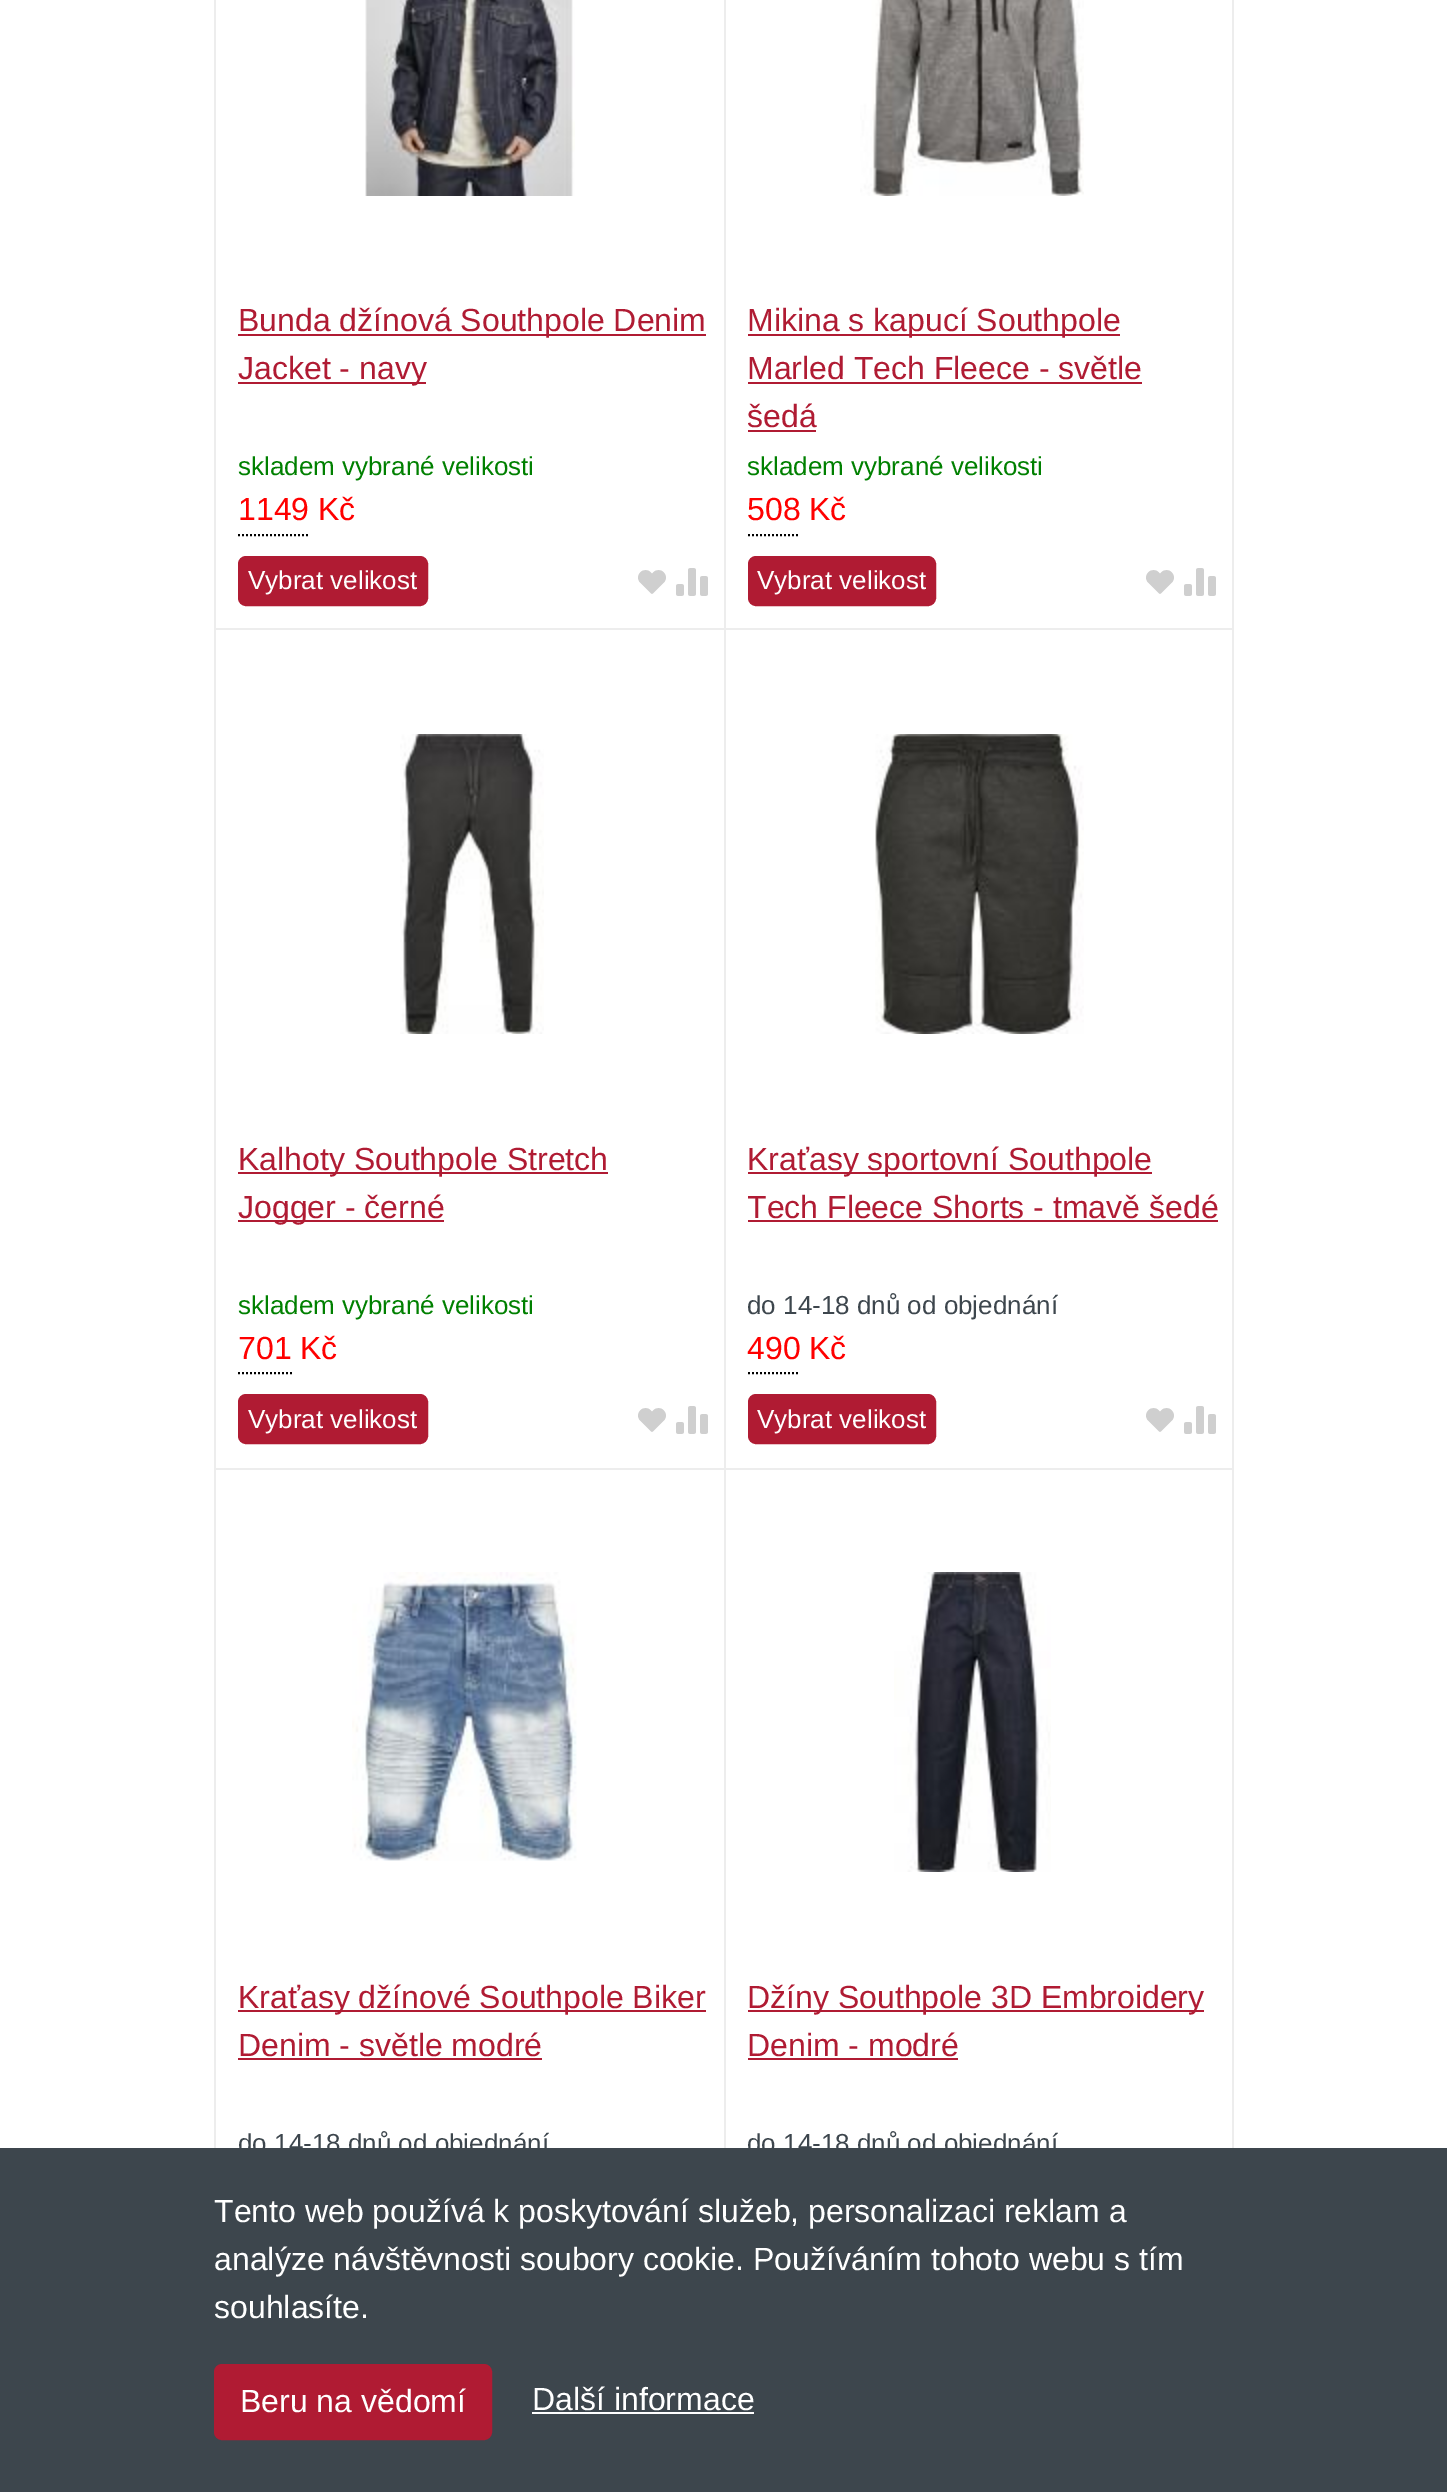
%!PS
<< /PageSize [1447 2492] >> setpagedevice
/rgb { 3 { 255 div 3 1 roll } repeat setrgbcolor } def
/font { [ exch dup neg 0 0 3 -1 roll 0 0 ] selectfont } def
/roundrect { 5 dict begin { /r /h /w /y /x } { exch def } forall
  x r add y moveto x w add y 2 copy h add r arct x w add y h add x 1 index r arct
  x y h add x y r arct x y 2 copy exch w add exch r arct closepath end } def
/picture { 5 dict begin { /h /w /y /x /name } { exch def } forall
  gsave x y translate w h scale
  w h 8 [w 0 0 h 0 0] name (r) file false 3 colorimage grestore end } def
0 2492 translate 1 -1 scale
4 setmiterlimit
255 255 255 rgb
0 0 1447 2492 rectfill
[
  [214 0 2 2148 237 237 237]
  [724 0 2 2148 237 237 237]
  [216 628 510 2 237 237 237]
] { aload pop rgb rectfill } forall
(img/1.rgb) 365 0 210 196 picture
176 27 51 rgb
238 334 468 2 rectfill
238 382 188 2 rectfill
0 0 0 rgb
2 setlinewidth
[2 2] 0 setdash
238 535 moveto 310 535 lineto stroke
176 27 51 rgb
239 557 188 48 7 roundrect gsave fill grestore
[] 0 setdash
stroke
(img/2.rgb) 638 570 28 24 picture
(img/3.rgb) 676 568 32 28 picture
237 237 237 rgb
1232 0 2 2148 rectfill
726 628 508 2 rectfill
(img/4.rgb) 860 0 224 196 picture
[
  [748 334 372 2 176 27 51]
  [748 382 394 2 176 27 51]
  [748 430 68 2 176 27 51]
] { aload pop rgb rectfill } forall
0 0 0 rgb
[2 2] 0 setdash
748 535 moveto 800 535 lineto stroke
176 27 51 rgb
749 557 186 48 7 roundrect gsave fill grestore
[] 0 setdash
stroke
(img/2.rgb) 1146 570 28 24 picture
(img/3.rgb) 1184 568 32 28 picture
237 237 237 rgb
216 1468 1018 2 rectfill
(img/5.rgb) 400 734 144 300 picture
176 27 51 rgb
238 1172 370 2 rectfill
238 1220 206 2 rectfill
0 0 0 rgb
[2 2] 0 setdash
238 1373 moveto 292 1373 lineto stroke
176 27 51 rgb
239 1395 188 48 7 roundrect gsave fill grestore
[] 0 setdash
stroke
(img/2.rgb) 638 1408 28 24 picture
(img/3.rgb) 676 1406 32 28 picture
(img/6.rgb) 875 734 209 300 picture
748 1172 404 2 rectfill
748 1220 470 2 rectfill
0 0 0 rgb
[2 2] 0 setdash
748 1373 moveto 800 1373 lineto stroke
176 27 51 rgb
749 1395 186 48 7 roundrect gsave fill grestore
[] 0 setdash
stroke
(img/2.rgb) 1146 1408 28 24 picture
(img/3.rgb) 1184 1406 32 28 picture
(img/7.rgb) 352 1572 225 289 picture
238 2010 468 2 rectfill
238 2058 304 2 rectfill
(img/8.rgb) 894 1572 157 300 picture
[
  [748 2010 456 2 176 27 51]
  [748 2058 210 2 176 27 51]
  [0 2148 1447 344 61 70 77]
] { aload pop rgb rectfill } forall
176 27 51 rgb
215 2365 276 74 7 roundrect gsave fill grestore
stroke
255 255 255 rgb
532 2412 222 2 rectfill
/LiberationSans-Regular 32 font
176 27 51 rgb
238 331 moveto (Bunda džínová Southpole Denim) show
238 379 moveto (Jacket - navy) show
/LiberationSans-Regular 26 font
0 128 0 rgb
238 475 moveto (skladem vybrané velikosti) show
/LiberationSans-Regular 32 font
255 0 0 rgb
238 520 moveto (1149) show
318 520 moveto (Kč) show
/LiberationSans-Regular 26 font
255 255 255 rgb
248 589 moveto (Vybrat velikost) show
/LiberationSans-Regular 32 font
176 27 51 rgb
[
  [(Mikina s kapucí Southpole) 747 331]
  [(Marled Tech Fleece - světle) 747 379]
  [(šedá) 747 427]
] { aload pop moveto show } forall
/LiberationSans-Regular 26 font
0 128 0 rgb
747 475 moveto (skladem vybrané velikosti) show
/LiberationSans-Regular 32 font
255 0 0 rgb
747 520 moveto (508) show
809 520 moveto (Kč) show
/LiberationSans-Regular 26 font
255 255 255 rgb
757 589 moveto (Vybrat velikost) show
/LiberationSans-Regular 32 font
176 27 51 rgb
238 1170 moveto (Kalhoty Southpole Stretch) show
238 1218 moveto (Jogger - černé) show
/LiberationSans-Regular 26 font
0 128 0 rgb
238 1314 moveto (skladem vybrané velikosti) show
/LiberationSans-Regular 32 font
255 0 0 rgb
238 1359 moveto (701) show
300 1359 moveto (Kč) show
/LiberationSans-Regular 26 font
255 255 255 rgb
248 1428 moveto (Vybrat velikost) show
/LiberationSans-Regular 32 font
176 27 51 rgb
747 1170 moveto (Kraťasy sportovní Southpole) show
gsave
748 1136 472 150 rectclip
747 1218 moveto (Tech Fleece Shorts - tmavě šedé) show
grestore
/LiberationSans-Regular 26 font
61 70 77 rgb
747 1314 moveto (do 14-18 dnů od objednání) show
/LiberationSans-Regular 32 font
255 0 0 rgb
747 1359 moveto (490) show
809 1359 moveto (Kč) show
/LiberationSans-Regular 26 font
255 255 255 rgb
757 1428 moveto (Vybrat velikost) show
/LiberationSans-Regular 32 font
176 27 51 rgb
238 2008 moveto (Kraťasy džínové Southpole Biker) show
238 2056 moveto (Denim - světle modré) show
/LiberationSans-Regular 26 font
61 70 77 rgb
238 2152 moveto (do 14-18 dnů od objednání) show
/LiberationSans-Regular 32 font
176 27 51 rgb
747 2008 moveto (Džíny Southpole 3D Embroidery) show
747 2056 moveto (Denim - modré) show
/LiberationSans-Regular 26 font
61 70 77 rgb
747 2152 moveto (do 14-18 dnů od objednání) show
/LiberationSans-Regular 32 font
255 255 255 rgb
[
  [(Tento web používá k poskytování služeb, personalizaci reklam a) 214 2222]
  [(analýze návštěvnosti soubory cookie. Používáním tohoto webu s tím) 214 2270]
  [(souhlasíte.) 214 2318]
  [(Beru na vědomí) 240 2412]
  [(Další informace) 532 2410]
] { aload pop moveto show } forall
showpage
